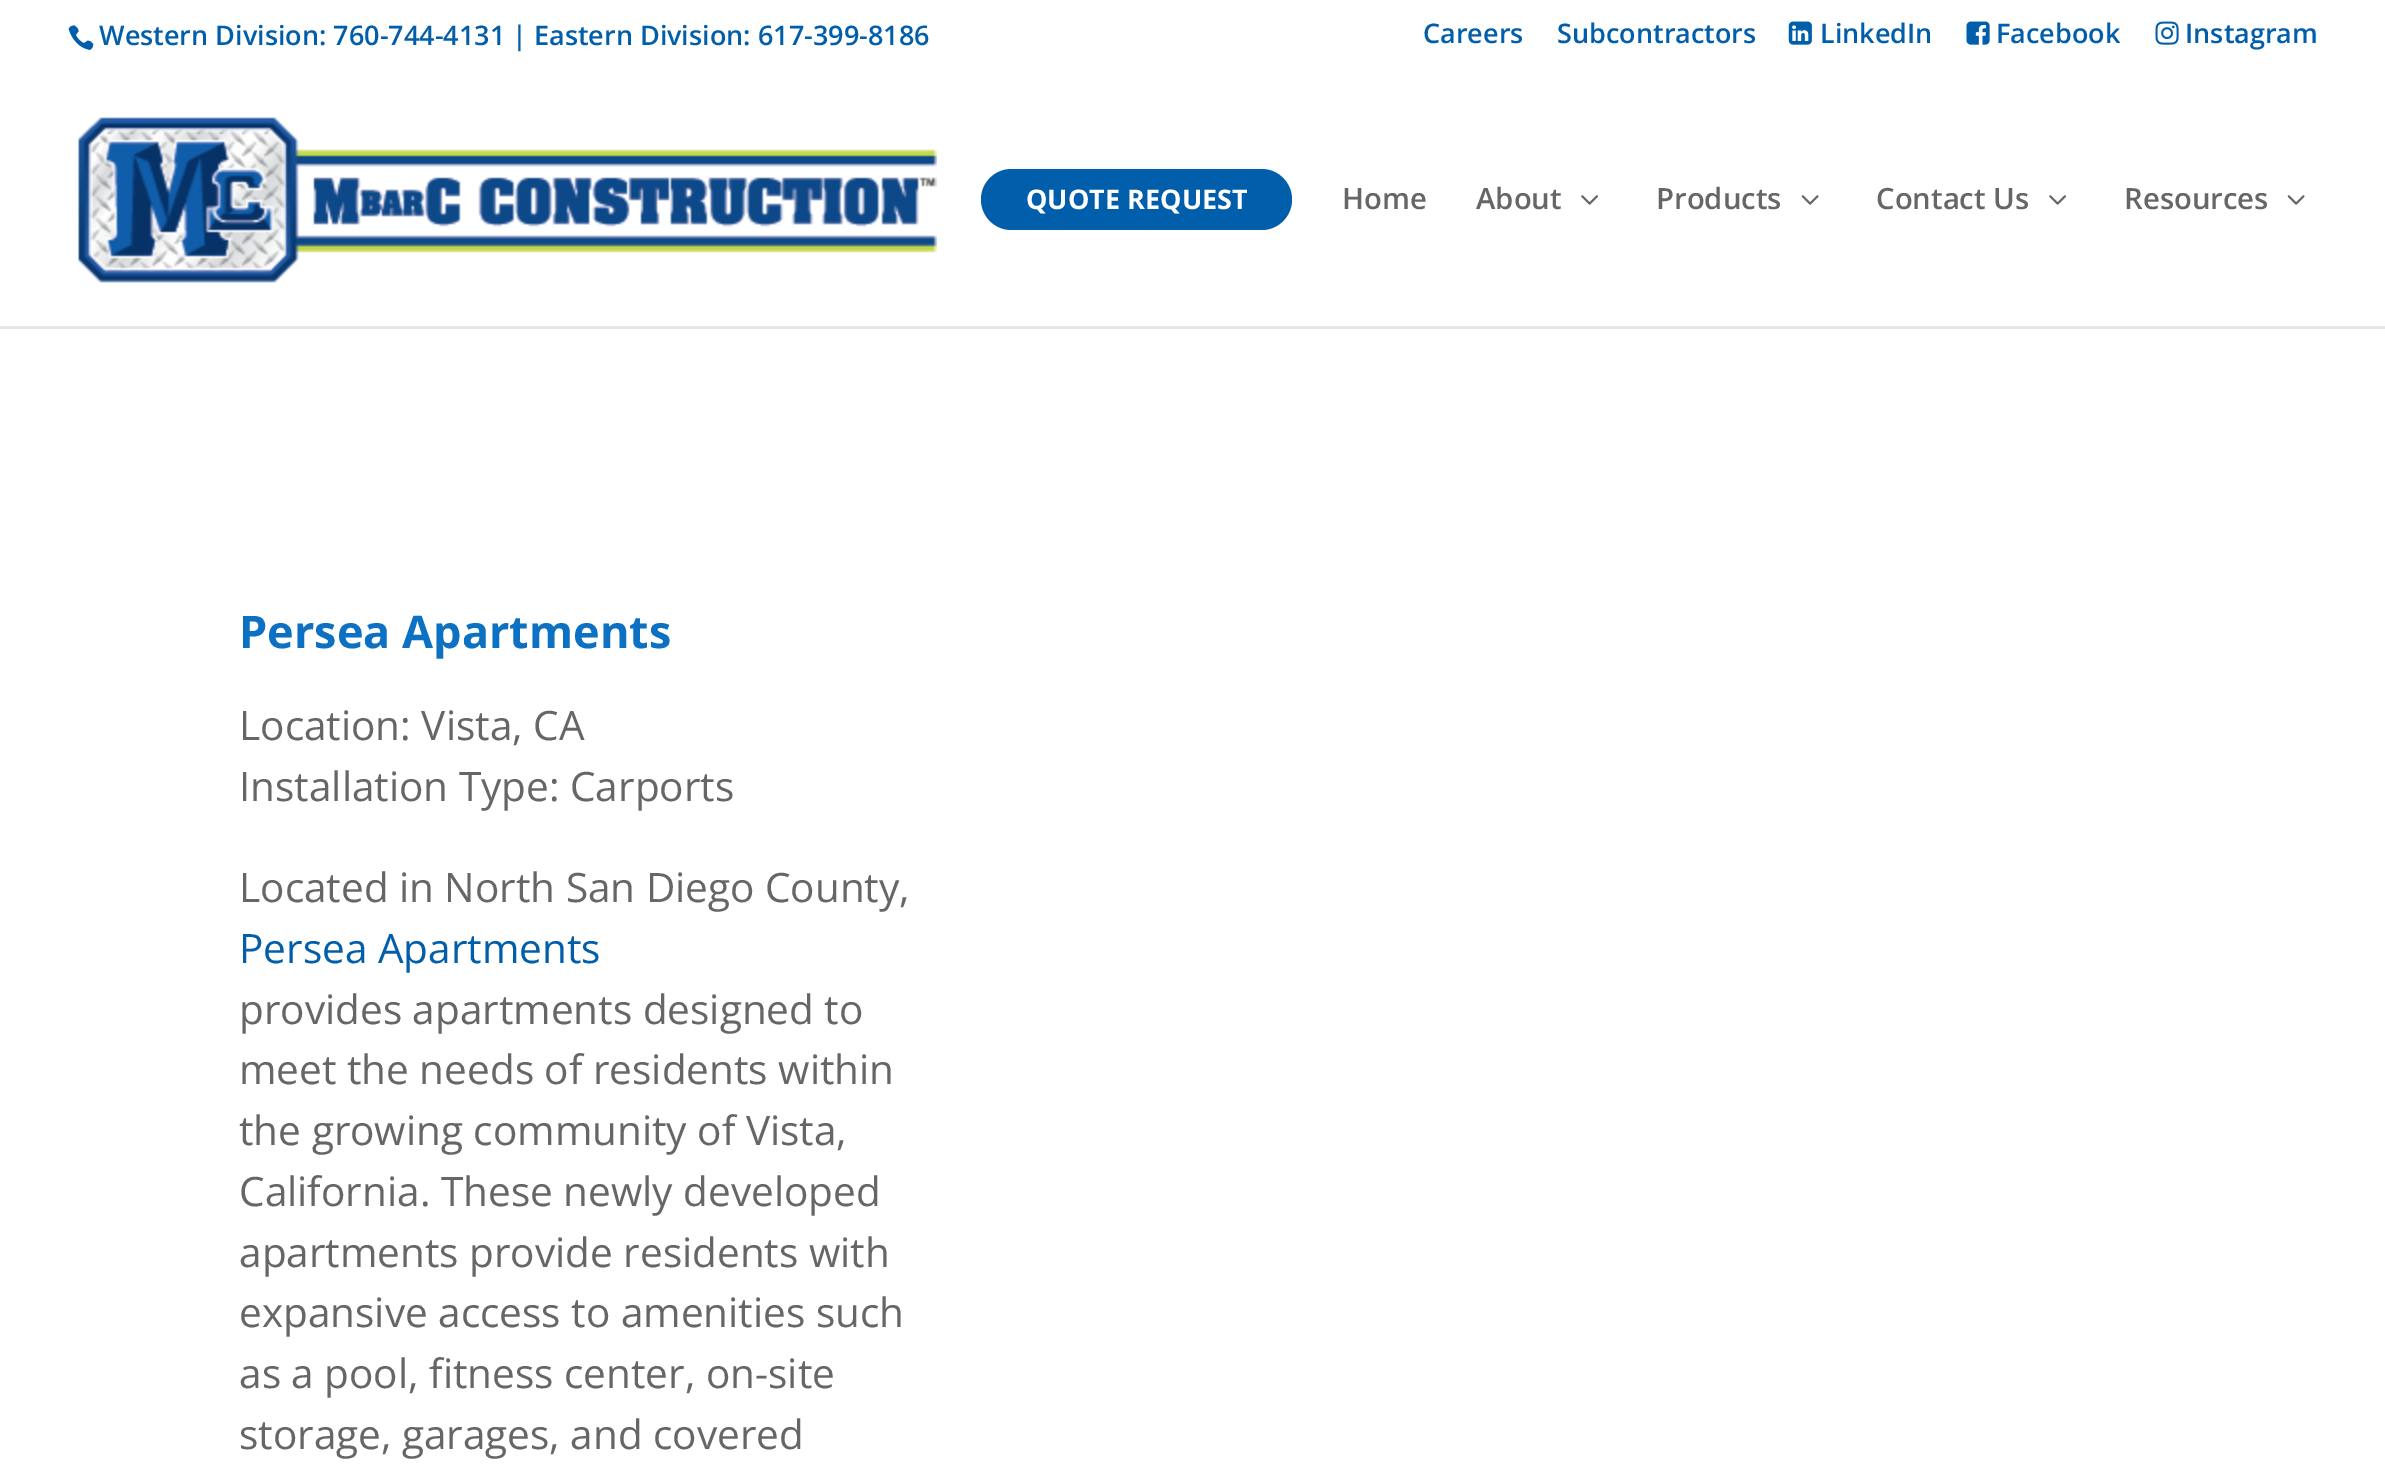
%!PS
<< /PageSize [2385 1466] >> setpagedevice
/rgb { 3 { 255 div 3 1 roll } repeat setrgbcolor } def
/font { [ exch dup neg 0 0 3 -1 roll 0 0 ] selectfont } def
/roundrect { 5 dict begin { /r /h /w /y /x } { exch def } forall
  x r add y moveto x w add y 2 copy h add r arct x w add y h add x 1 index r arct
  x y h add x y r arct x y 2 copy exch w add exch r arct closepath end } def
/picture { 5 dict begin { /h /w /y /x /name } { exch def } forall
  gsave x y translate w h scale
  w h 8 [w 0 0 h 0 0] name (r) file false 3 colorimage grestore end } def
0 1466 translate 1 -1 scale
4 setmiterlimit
255 255 255 rgb
0 0 2385 1466 rectfill
(img/1.rgb) 68 25 26 26 picture
(img/2.rgb) 1788 21 24 24 picture
(img/3.rgb) 1966 21 24 24 picture
(img/4.rgb) 2155 21 24 24 picture
230 230 230 rgb
0 326 2385 3 rectfill
(img/5.rgb) 78 117 859 166 picture
0 94 170 rgb
981 169 311 61 30.5 roundrect fill
(img/6.rgb) 1581 195 17 10 picture
(img/7.rgb) 1801 195 18 10 picture
(img/6.rgb) 2049 195 17 10 picture
(img/7.rgb) 2287 195 18 10 picture
/OpenSans-SemiBold 27 font
[
  [(Western Division: 760-744-4131 | Eastern Division: 617-399-8186) 99 45]
  [(Careers) 1423 43]
  [(Subcontractors) 1557 43]
  [(LinkedIn) 1820 43]
  [(Facebook) 1996 43]
  [(Instagram) 2185 43]
] { aload pop moveto show } forall
/OpenSans-Bold 27 font
255 255 255 rgb
1026 209 moveto (QUOTE REQUEST) show
/OpenSans-SemiBold 29.25 font
102 102 102 rgb
[
  [(Home) 1342 209]
  [(About) 1476 209]
  [(Products) 1656 209]
  [(Contact Us) 1876 209]
  [(Resources) 2124 209]
] { aload pop moveto show } forall
/OpenSans-Bold 45 font
12 113 195 rgb
239 648 moveto (Persea Apartments) show
/OpenSans-Regular 40.5 font
102 102 102 rgb
[
  [(Location: Vista, CA) 239 740]
  [(Installation Type: Carports) 239 801]
  [(Located in North San Diego County,) 239 902]
] { aload pop moveto show } forall
0 94 170 rgb
239 963 moveto (Persea Apartments) show
102 102 102 rgb
[
  [(provides apartments designed to) 239 1024]
  [(meet the needs of residents within) 239 1084]
  [(the growing community of Vista,) 239 1145]
  [(California. These newly developed) 239 1206]
  [(apartments provide residents with) 239 1267]
  [(expansive access to amenities such) 239 1327]
  [(as a pool, fitness center, on-site) 239 1388]
  [(storage, garages, and covered) 239 1449]
] { aload pop moveto show } forall
showpage
